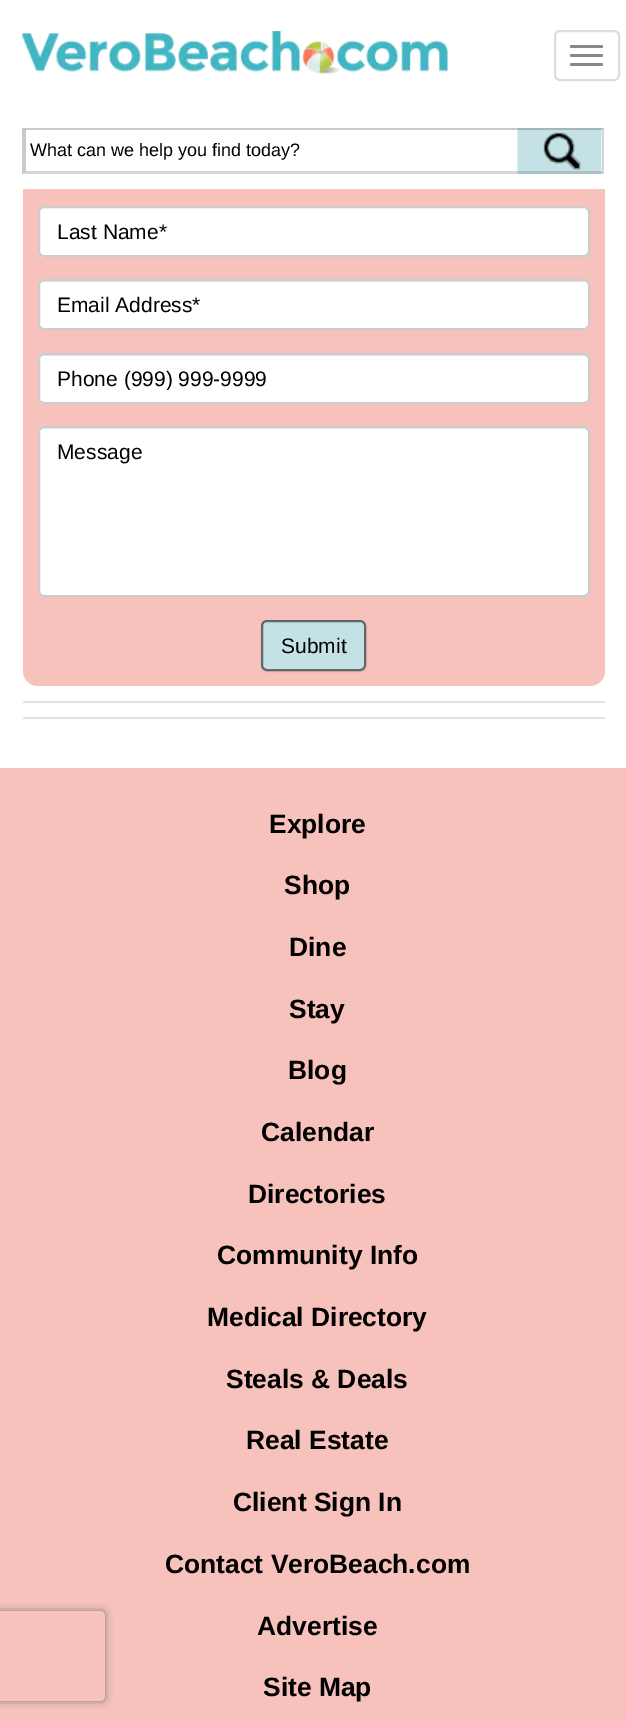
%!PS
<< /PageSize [626 1721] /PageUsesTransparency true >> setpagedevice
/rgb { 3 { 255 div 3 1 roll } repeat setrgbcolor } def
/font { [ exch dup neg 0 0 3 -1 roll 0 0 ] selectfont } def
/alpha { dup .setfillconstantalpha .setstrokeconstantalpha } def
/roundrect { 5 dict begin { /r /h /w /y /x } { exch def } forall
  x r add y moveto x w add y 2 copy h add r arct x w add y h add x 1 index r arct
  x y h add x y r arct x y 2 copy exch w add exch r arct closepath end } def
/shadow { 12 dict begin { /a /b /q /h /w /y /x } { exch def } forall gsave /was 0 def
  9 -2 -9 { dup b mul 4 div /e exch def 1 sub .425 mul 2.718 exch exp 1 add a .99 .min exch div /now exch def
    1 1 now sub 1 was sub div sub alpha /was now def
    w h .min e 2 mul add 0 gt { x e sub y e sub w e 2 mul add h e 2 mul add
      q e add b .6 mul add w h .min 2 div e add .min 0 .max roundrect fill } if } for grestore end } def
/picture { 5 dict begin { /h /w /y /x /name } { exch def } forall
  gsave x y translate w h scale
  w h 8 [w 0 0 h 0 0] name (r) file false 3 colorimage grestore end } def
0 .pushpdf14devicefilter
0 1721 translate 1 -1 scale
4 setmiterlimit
255 255 255 rgb
0 0 626 1721 rectfill
247 194 187 rgb
23 33 582 653 15 roundrect fill
255 255 255 rgb
0 0 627 189 6 roundrect fill
(img/1.rgb) 22 31 426 43 picture
221 221 221 rgb
2 setlinewidth
555 31 64 49 5 roundrect stroke
136 136 136 rgb
570 45 33 3 1.5 roundrect fill
570 54 33 3 1.5 roundrect fill
570 63 33 3 1.5 roundrect fill
(img/2.rgb) 517 128 85 46 picture
0.3 alpha
79 79 79 rgb
22 128 moveto 604 128 lineto 602 130 lineto 26 130 lineto closepath fill
118 118 118 rgb
604 128 moveto 604 174 lineto 602 171 lineto 602 130 lineto closepath fill
604 174 moveto 22 174 lineto 26 171 lineto 602 171 lineto closepath fill
79 79 79 rgb
22 174 moveto 22 128 lineto 26 130 lineto 26 171 lineto closepath fill
1 alpha
255 255 255 rgb
38 206 552 51 6 roundrect fill
236 236 236 rgb
44 208 moveto 584 208 lineto 586 208 588 211 588 213 curveto 588 210 586 207 583 207 curveto 44 207 lineto 41 207 39 210 39 213 curveto 39 211 41 208 44 208 curveto closepath fill
204 204 204 rgb
39 207 550 49 5 roundrect stroke
255 255 255 rgb
38 279 552 51 6 roundrect fill
236 236 236 rgb
44 282 moveto 584 282 lineto 586 282 588 284 588 286 curveto 588 283 586 281 583 281 curveto 44 281 lineto 41 281 39 283 39 286 curveto 39 284 41 282 44 282 curveto closepath fill
204 204 204 rgb
39 280 550 49 5 roundrect stroke
255 255 255 rgb
38 353 552 51 6 roundrect fill
236 236 236 rgb
44 356 moveto 584 356 lineto 586 356 588 358 588 360 curveto 588 357 586 354 583 354 curveto 44 354 lineto 41 354 39 357 39 360 curveto 39 358 41 356 44 356 curveto closepath fill
204 204 204 rgb
39 354 550 49 5 roundrect stroke
255 255 255 rgb
38 426 552 171 6 roundrect fill
236 236 236 rgb
44 429 moveto 584 429 lineto 586 429 588 431 588 434 curveto 588 431 586 428 583 428 curveto 44 428 lineto 41 428 39 431 39 434 curveto 39 431 41 429 44 429 curveto closepath fill
204 204 204 rgb
39 427 550 169 5 roundrect stroke
0 0 0 rgb
261 621 105 51 6 1 0.07 shadow
196 226 230 rgb
261 620 105 51 6 roundrect fill
205 230 234 rgb
267 622 moveto 360 622 lineto 365 622 364 631 364 634 curveto 364 667 lineto 365 666 365 665 365 664 curveto 365 626 lineto 365 623 363 621 360 621 curveto 268 621 lineto 266 621 264 622 263 624 curveto 264 623 266 622 267 622 curveto closepath fill
100 101 106 rgb
262 621 103 49 5 roundrect stroke
[
  [23 701 582 2 227 227 227]
  [23 717 582 2 227 227 227]
  [0 768 626 953 247 194 187]
] { aload pop rgb rectfill } forall
gsave
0 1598 moveto 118 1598 lineto 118 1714 lineto 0 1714 lineto closepath -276 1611 moveto 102 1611 lineto 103.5 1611 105 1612.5 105 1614 curveto 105 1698 lineto 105 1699.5 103.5 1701 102 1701 curveto -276 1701 lineto -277.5 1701 -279 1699.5 -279 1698 curveto -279 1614 lineto -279 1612.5 -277.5 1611 -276 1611 curveto closepath eoclip newpath
128 128 128 rgb
-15 1611 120 90 3 4 1 shadow
grestore
/LiberationSans-Regular 18 font
0 0 0 rgb
30 156 moveto (What can we help you find today?) show
/LiberationSans-Regular 21 font
57 239 moveto (Last Name*) show
57 312 moveto (Email Address*) show
gsave
57 366 513 24 rectclip
57 386 moveto (Phone \(999\) 999-9999) show
grestore
57 459 moveto (Message) show
281 653 moveto (Submit) show
/LiberationSans-Bold 26.4 font
[
  [(Explore) 269 833]
  [(Shop) 284 894]
  [(Dine) 289 956]
  [(Stay) 289 1018]
  [(Blog) 288 1079]
  [(Calendar) 261 1141]
  [(Directories) 248 1203]
  [(Community Info) 217 1264]
  [(Medical Directory) 207 1326]
  [(Steals & Deals) 226 1388]
  [(Real Estate) 246 1449]
  [(Client Sign In) 233 1511]
  [(Contact VeroBeach.com) 165 1573]
  [(Advertise) 257 1635]
  [(Site Map) 263 1696]
] { aload pop moveto show } forall
.poppdf14devicefilter showpage
